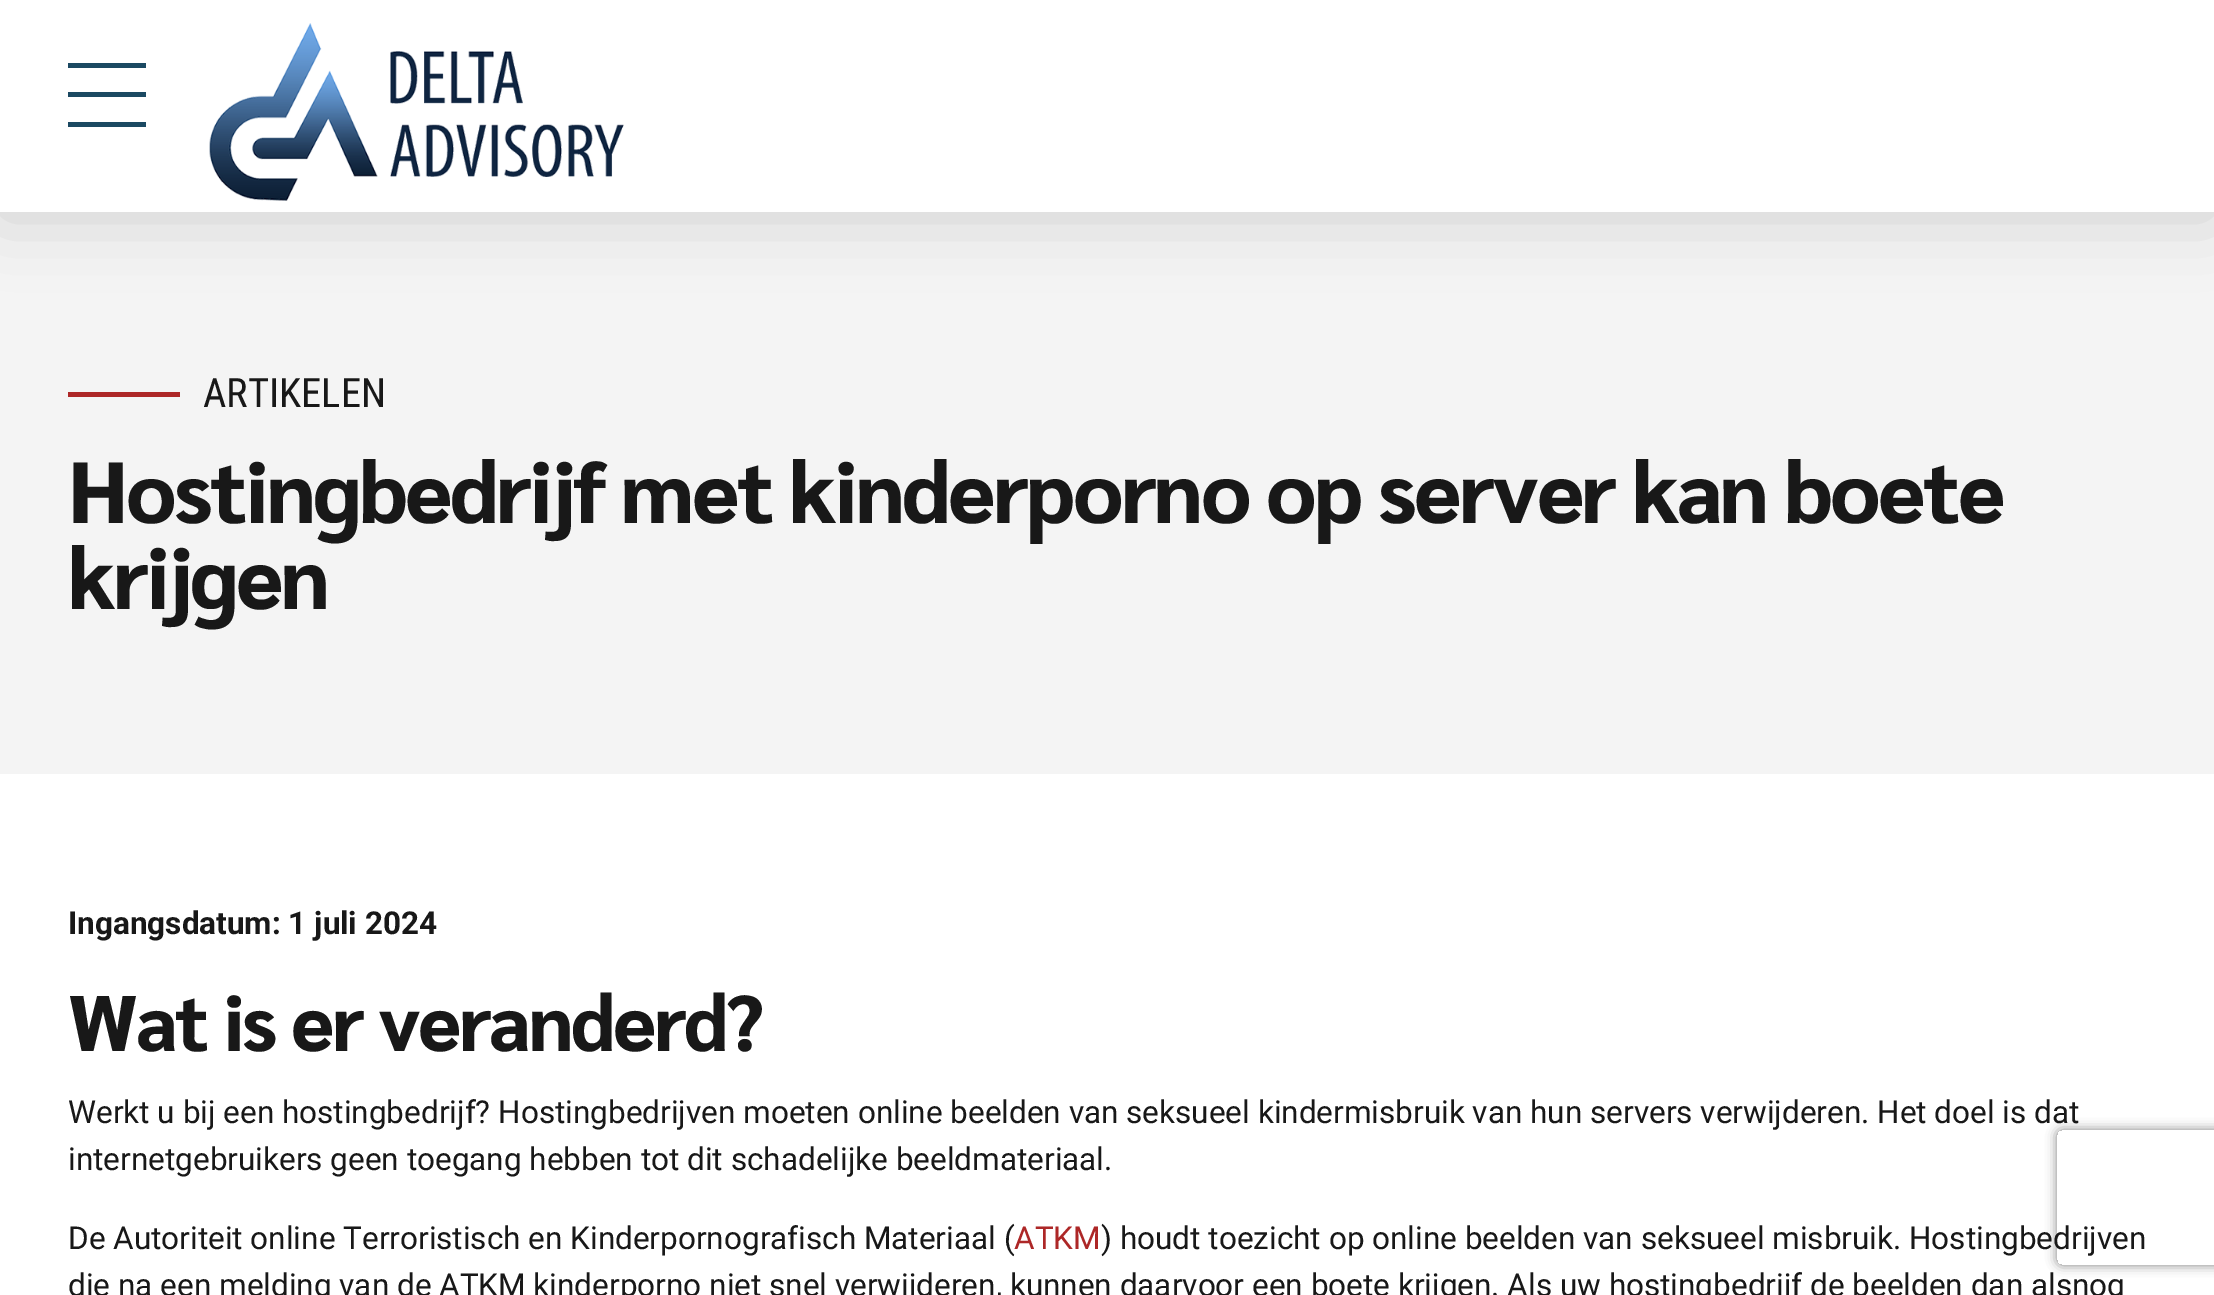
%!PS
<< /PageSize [2214 1295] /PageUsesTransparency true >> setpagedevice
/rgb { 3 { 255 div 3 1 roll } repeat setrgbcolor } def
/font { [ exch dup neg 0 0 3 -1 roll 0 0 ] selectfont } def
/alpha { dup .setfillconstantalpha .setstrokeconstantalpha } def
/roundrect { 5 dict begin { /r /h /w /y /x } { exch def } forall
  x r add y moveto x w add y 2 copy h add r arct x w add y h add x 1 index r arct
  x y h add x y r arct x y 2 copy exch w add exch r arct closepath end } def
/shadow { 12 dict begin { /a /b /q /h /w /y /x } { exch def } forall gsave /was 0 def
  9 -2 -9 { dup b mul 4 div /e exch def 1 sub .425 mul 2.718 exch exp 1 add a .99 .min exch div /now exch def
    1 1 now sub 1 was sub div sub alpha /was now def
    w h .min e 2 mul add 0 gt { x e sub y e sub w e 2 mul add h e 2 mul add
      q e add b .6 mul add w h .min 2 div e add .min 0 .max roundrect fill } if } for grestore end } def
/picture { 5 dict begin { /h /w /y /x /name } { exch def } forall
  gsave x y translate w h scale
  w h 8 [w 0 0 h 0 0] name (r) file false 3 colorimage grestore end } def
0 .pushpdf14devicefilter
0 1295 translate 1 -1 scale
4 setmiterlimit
255 255 255 rgb
0 0 2214 1295 rectfill
244 244 244 rgb
0 212 2214 562 rectfill
0 0 0 rgb
0 5 2214 211 0 34 0.15 shadow
[
  [0 0 2214 212 255 255 255]
  [68 63 78 5 27 73 98]
  [68 92 78 5 27 73 98]
  [68 122 78 5 27 73 98]
] { aload pop rgb rectfill } forall
(img/1.rgb) 209 23 415 178 picture
173 39 39 rgb
68 392 112 5 rectfill
gsave
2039 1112 moveto 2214 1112 lineto 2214 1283 lineto 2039 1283 lineto closepath 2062 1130 moveto 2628 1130 lineto 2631 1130 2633 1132 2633 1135 curveto 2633 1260 lineto 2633 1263 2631 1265 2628 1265 curveto 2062 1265 lineto 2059 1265 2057 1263 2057 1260 curveto 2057 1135 lineto 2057 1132 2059 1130 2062 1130 curveto closepath eoclip newpath
128 128 128 rgb
2057 1130 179 135 5 5.5 1 shadow
grestore
/RobotoCondensed-Regular 40.5 font
24 24 24 rgb
203 407 moveto (ARTIKELEN) show
/Sarabun-ExtraBold 86.4 font
68 523 moveto -2.6 0 (Hostingbedrijf met kinderporno op server kan boete) ashow
68 609 moveto -2.6 0 (krijgen) ashow
/Roboto-Bold 31.5 font
68 934 moveto (Ingangsdatum: 1 juli 2024) show
/Sarabun-ExtraBold 78.75 font
68 1051 moveto -2.4 0 (Wat is er veranderd?) ashow
/Roboto-Regular 31.5 font
[
  [(Werkt u bij een hostingbedrijf? Hostingbedrijven moeten online beelden van seksueel kindermisbruik van hun servers verwijderen. Het doel is dat) 68 1123]
  [(internetgebruikers geen toegang hebben tot dit schadelijke beeldmateriaal.) 68 1170]
  [(De Autoriteit online Terroristisch en Kinderpornografisch Materiaal \() 68 1249]
] { aload pop moveto show } forall
173 39 39 rgb
1014 1249 moveto (ATKM) show
24 24 24 rgb
1101 1249 moveto (\) houdt toezicht op online beelden van seksueel misbruik. Hostingbedrijven) show
68 1296 moveto (die na een melding van de ATKM kinderporno niet snel verwijderen, kunnen daarvoor een boete krijgen. Als uw hostingbedrijf de beelden dan alsnog) show
.poppdf14devicefilter showpage
